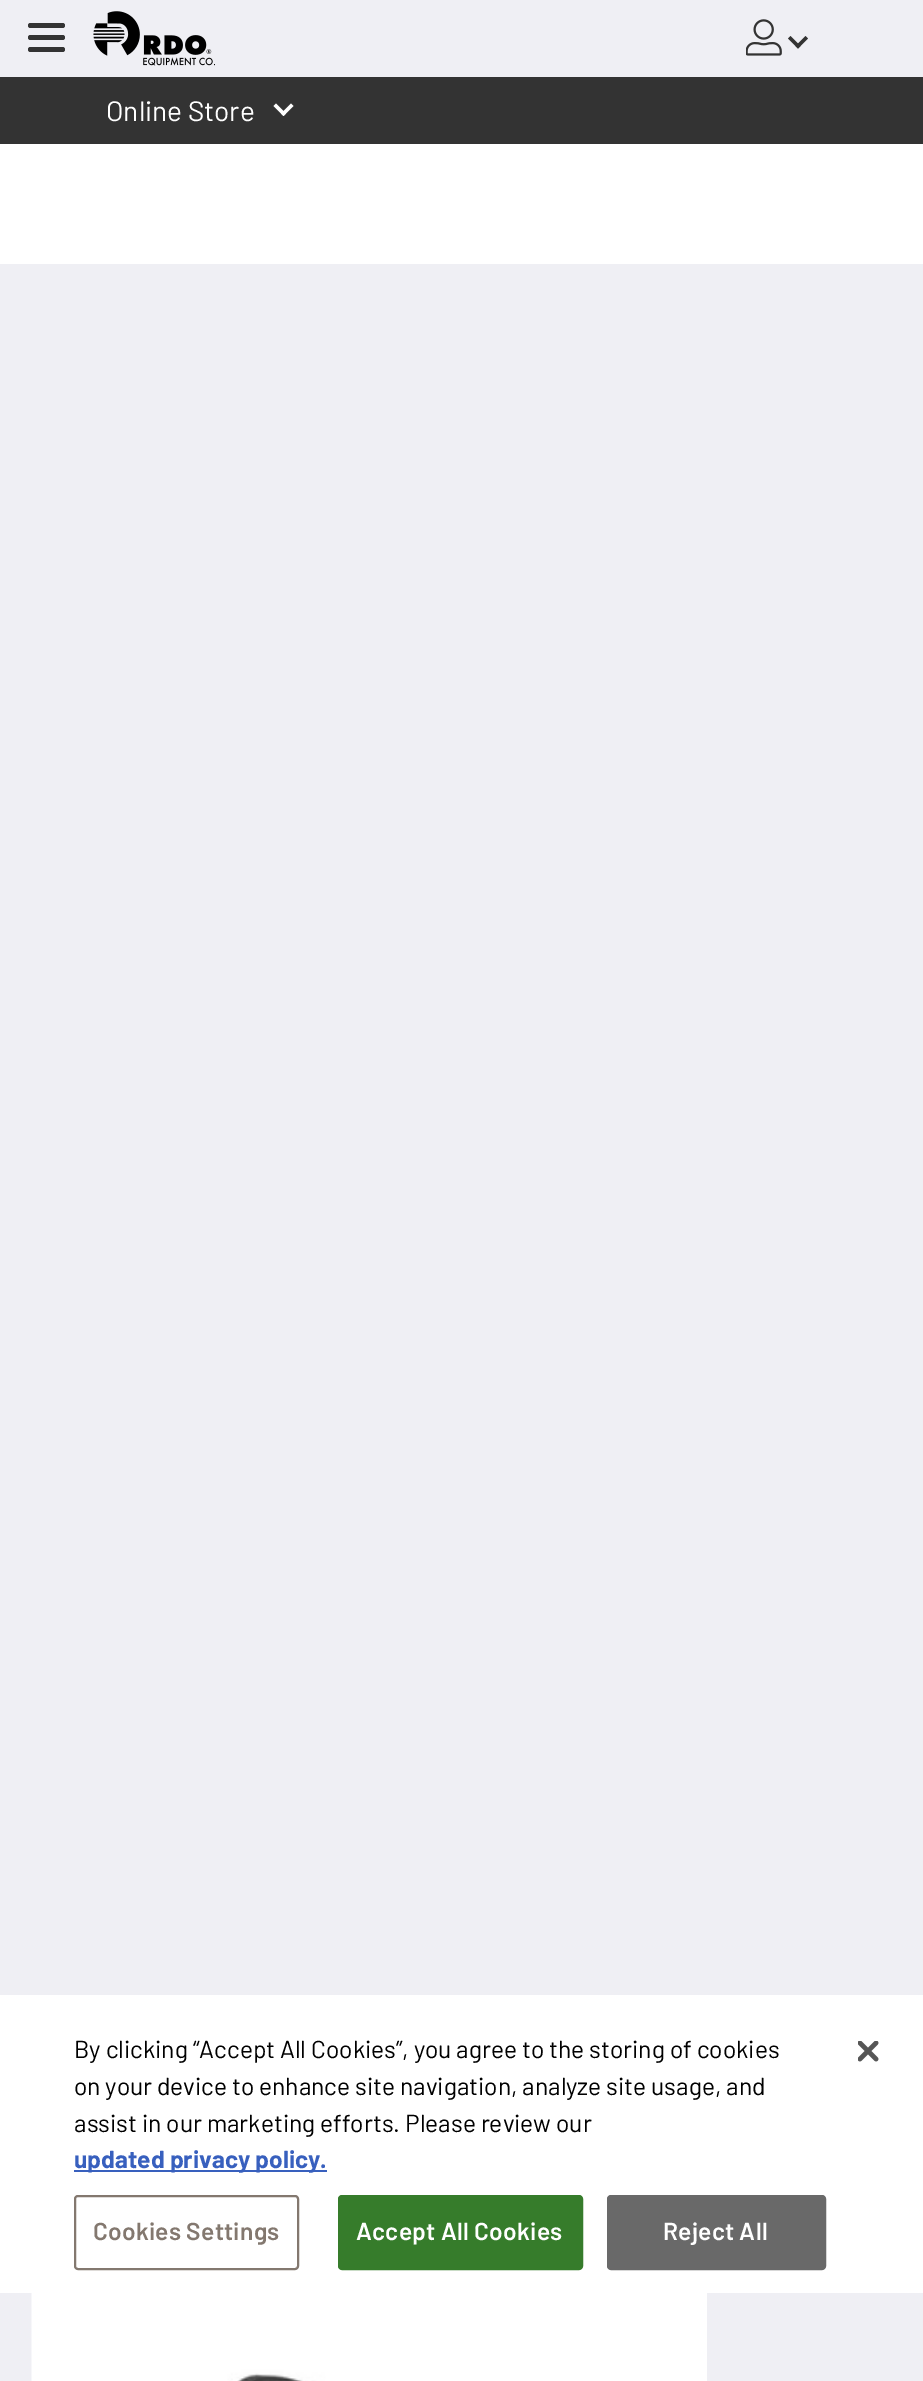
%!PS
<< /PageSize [923 2381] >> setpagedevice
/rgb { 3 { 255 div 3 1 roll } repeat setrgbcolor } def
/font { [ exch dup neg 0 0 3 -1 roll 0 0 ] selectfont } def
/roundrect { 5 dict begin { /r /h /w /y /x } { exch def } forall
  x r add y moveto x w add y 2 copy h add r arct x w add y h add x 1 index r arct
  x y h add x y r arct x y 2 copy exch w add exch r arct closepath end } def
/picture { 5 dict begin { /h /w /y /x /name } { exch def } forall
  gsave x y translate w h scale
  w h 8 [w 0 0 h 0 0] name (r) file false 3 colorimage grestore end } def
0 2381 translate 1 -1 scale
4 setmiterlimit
239 239 244 rgb
0 0 923 2381 rectfill
51 51 51 rgb
28 23 37 5 2.5 roundrect fill
28 35 37 5 2.5 roundrect fill
28 47 37 5 2.5 roundrect fill
(img/1.rgb) 93 11 122 55 picture
(img/2.rgb) 746 19 36 37 picture
805.5 36 moveto 808 38.5 lineto 798 48.5 lineto 795.5 46 lineto closepath fill
790.5 36 moveto 800.5 46 lineto 798 48.5 lineto 788 38.5 lineto closepath fill
0 77 923 67 rectfill
255 255 255 rgb
291 103.5 moveto 293.5 106 lineto 283.5 116 lineto 281 113.5 lineto closepath fill
276 103.5 moveto 286 113.5 lineto 283.5 116 lineto 273.5 106 lineto closepath fill
[
  [0 144 923 120 255 255 255]
  [0 1995 923 298 255 255 255]
  [74 2170 253 2 56 96 190]
] { aload pop rgb rectfill } forall
131 120 111 rgb
2 setlinewidth
75 2196 223 73 3 roundrect stroke
54 124 43 rgb
339 2196 243 73 3 roundrect gsave fill grestore
stroke
105 105 105 rgb
608 2196 217 73 3 roundrect gsave fill grestore
stroke
(img/3.rgb) 858 2041 21 21 picture
(img/4.rgb) 31 2293 676 88 picture
/Barlow-Regular 28 font
255 255 255 rgb
106 121 moveto (Online Store) show
/Barlow-Regular 24.5 font
0 0 0 rgb
[
  [(By clicking “Accept All Cookies”, you agree to the storing of cookies) 74 2058]
  [(on your device to enhance site navigation, analyze site usage, and) 74 2095]
  [(assist in our marketing efforts. Please review our) 74 2132]
] { aload pop moveto show } forall
/Barlow-Bold 24.5 font
56 96 190 rgb
74 2168 moveto (updated privacy policy.) show
/Barlow-SemiBold 24.5 font
131 120 111 rgb
93 2240 moveto 0.25 0 (Cookies Settings) ashow
255 255 255 rgb
356 2240 moveto 0.25 0 (Accept All Cookies) ashow
663 2240 moveto 0.25 0 (Reject All) ashow
showpage
